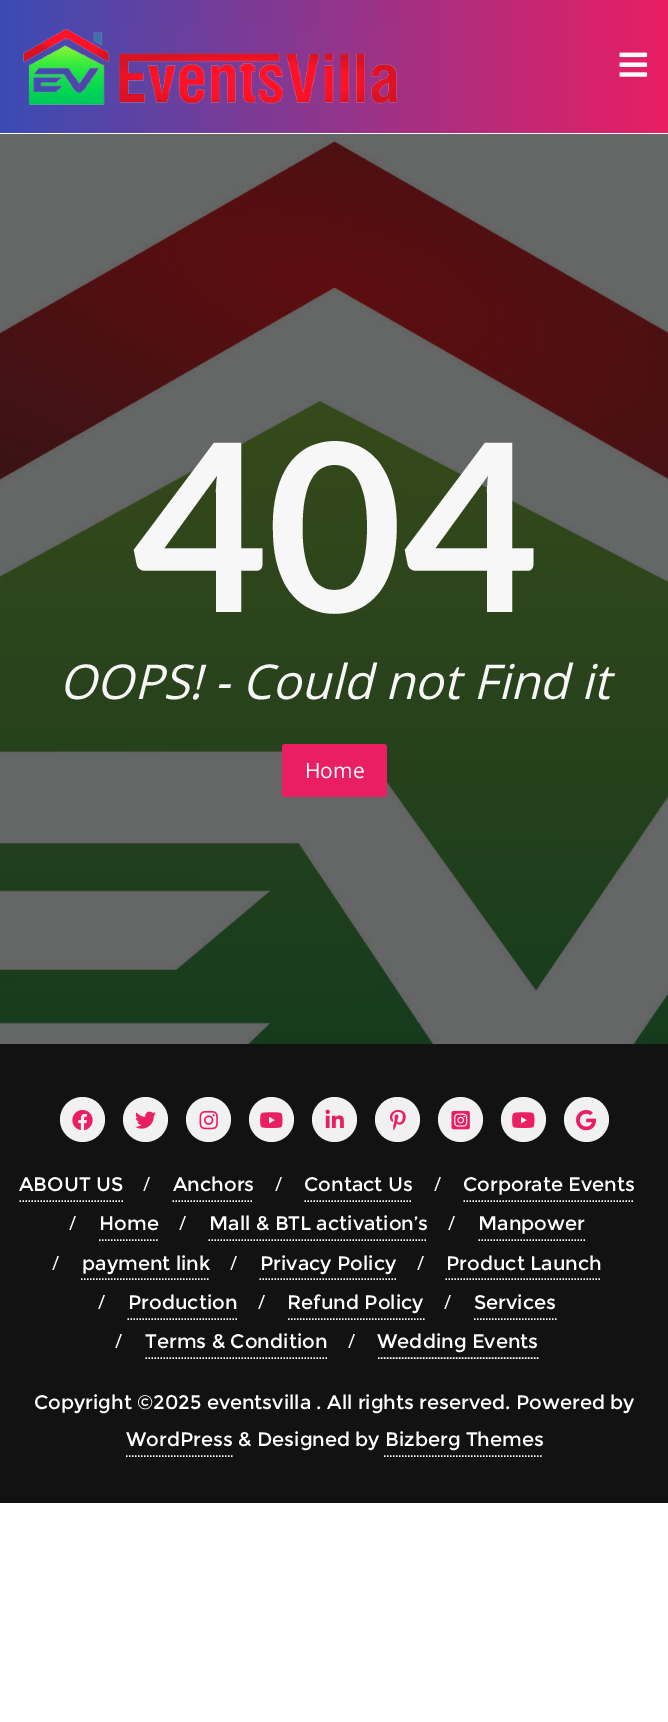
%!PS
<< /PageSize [668 1722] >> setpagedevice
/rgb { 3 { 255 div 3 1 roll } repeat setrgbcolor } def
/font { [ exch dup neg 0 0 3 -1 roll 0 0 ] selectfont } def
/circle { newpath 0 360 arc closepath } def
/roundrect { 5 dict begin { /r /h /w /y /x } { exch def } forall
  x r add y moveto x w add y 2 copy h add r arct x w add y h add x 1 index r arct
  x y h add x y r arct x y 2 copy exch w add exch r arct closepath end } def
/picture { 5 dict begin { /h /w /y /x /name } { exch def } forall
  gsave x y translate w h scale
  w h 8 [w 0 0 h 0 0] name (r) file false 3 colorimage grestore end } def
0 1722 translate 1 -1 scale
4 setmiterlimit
255 255 255 rgb
0 0 668 1722 rectfill
gsave 0 0 moveto 668 0 lineto 668 133 lineto 0 133 lineto closepath clip newpath
<< /ShadingType 2 /ColorSpace /DeviceRGB /Coords [0 67 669 67] /Extend [true true] /Function << /FunctionType 2 /Domain [0 1] /C0 [0.227 0.298 0.706] /C1 [0.914 0.118 0.388] /N 1 >> >> shfill grestore
(img/1.rgb) 23 28 375 77 picture
(img/2.rgb) 619 52 29 25 picture
(img/3.rgb) 0 133 668 911 picture
233 30 99 rgb
282 744 105 53 3 roundrect fill
18 18 18 rgb
0 1044 668 459 rectfill
241 241 241 rgb
82.5 1119.5 22.5 circle fill
(img/4.rgb) 72 1110 21 21 picture
145.5 1119.5 22.5 circle fill
(img/5.rgb) 135 1111 21 18 picture
208.5 1119.5 22.5 circle fill
(img/6.rgb) 199 1110 19 20 picture
271.5 1119.5 22.5 circle fill
(img/7.rgb) 260 1112 23 16 picture
334.5 1119.5 22.5 circle fill
(img/8.rgb) 325 1109 19 19 picture
397.5 1119.5 22.5 circle fill
(img/9.rgb) 390 1109 16 22 picture
460.5 1119.5 22.5 circle fill
(img/10.rgb) 451 1110 19 20 picture
523.5 1119.5 22.5 circle fill
(img/7.rgb) 512 1112 23 16 picture
586.5 1119.5 22.5 circle fill
(img/11.rgb) 576 1110 20 21 picture
255 255 255 rgb
1.5 setlinewidth
[1.5 1.5] 0 setdash
19.5 1201 moveto 123 1201 lineto stroke
172.5 1201 moveto 253.5 1201 lineto stroke
304.5 1201 moveto 412.5 1201 lineto stroke
463.5 1201 moveto 634.5 1201 lineto stroke
99 1240 moveto 159 1240 lineto stroke
208.5 1240 moveto 427.5 1240 lineto stroke
478.5 1240 moveto 585 1240 lineto stroke
81 1279 moveto 210 1279 lineto stroke
259.5 1279 moveto 396 1279 lineto stroke
445.5 1279 moveto 601.5 1279 lineto stroke
127.5 1319 moveto 237 1319 lineto stroke
288 1319 moveto 424.5 1319 lineto stroke
474 1319 moveto 556.5 1319 lineto stroke
145.5 1358 moveto 327 1358 lineto stroke
378 1358 moveto 538.5 1358 lineto stroke
126 1456 moveto 232.5 1456 lineto stroke
384 1456 moveto 543 1456 lineto stroke
/Lato-Bold 234 font
247 247 247 rgb
131 612 moveto (404) show
/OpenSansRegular-Italic 48 font
59 699 moveto (OOPS! - Could not Find it) show
/OpenSansRegular-Regular 21 font
255 255 255 rgb
305 778 moveto (Home) show
/Montserrat-Regular 19.5 font
19 1191 moveto (ABOUT US) show
/OpenSansRegular-Regular 19.5 font
143 1191 moveto (/) show
/Montserrat-Regular 19.5 font
173 1191 moveto (Anchors) show
/OpenSansRegular-Regular 19.5 font
275 1191 moveto (/) show
/Montserrat-Regular 19.5 font
304 1191 moveto (Contact Us) show
/OpenSansRegular-Regular 19.5 font
434 1191 moveto (/) show
/Montserrat-Regular 19.5 font
463 1191 moveto (Corporate Events) show
/OpenSansRegular-Regular 19.5 font
69 1230 moveto (/) show
/Montserrat-Regular 19.5 font
99 1230 moveto (Home) show
/OpenSansRegular-Regular 19.5 font
179 1230 moveto (/) show
/Montserrat-Regular 19.5 font
209 1230 moveto (Mall & BTL activation’s) show
/OpenSansRegular-Regular 19.5 font
448 1230 moveto (/) show
/Montserrat-Regular 19.5 font
478 1230 moveto (Manpower) show
/OpenSansRegular-Regular 19.5 font
52 1270 moveto (/) show
/Montserrat-Regular 19.5 font
82 1270 moveto (payment link) show
/OpenSansRegular-Regular 19.5 font
230 1270 moveto (/) show
/Montserrat-Regular 19.5 font
260 1270 moveto (Privacy Policy) show
/OpenSansRegular-Regular 19.5 font
417 1270 moveto (/) show
/Montserrat-Regular 19.5 font
446 1270 moveto (Product Launch) show
/OpenSansRegular-Regular 19.5 font
98 1309 moveto (/) show
/Montserrat-Regular 19.5 font
128 1309 moveto (Production) show
/OpenSansRegular-Regular 19.5 font
258 1309 moveto (/) show
/Montserrat-Regular 19.5 font
287 1309 moveto (Refund Policy) show
/OpenSansRegular-Regular 19.5 font
444 1309 moveto (/) show
/Montserrat-Regular 19.5 font
474 1309 moveto (Services) show
/OpenSansRegular-Regular 19.5 font
115 1348 moveto (/) show
/Montserrat-Regular 19.5 font
145 1348 moveto (Terms & Condition) show
/OpenSansRegular-Regular 19.5 font
348 1348 moveto (/) show
/Montserrat-Regular 19.5 font
[
  [(Wedding Events) 377 1348]
  [(Copyright ©2025 eventsvilla . All rights reserved. Powered by) 34 1409]
  [(WordPress & Designed by Bizberg Themes) 126 1446]
] { aload pop moveto show } forall
showpage
